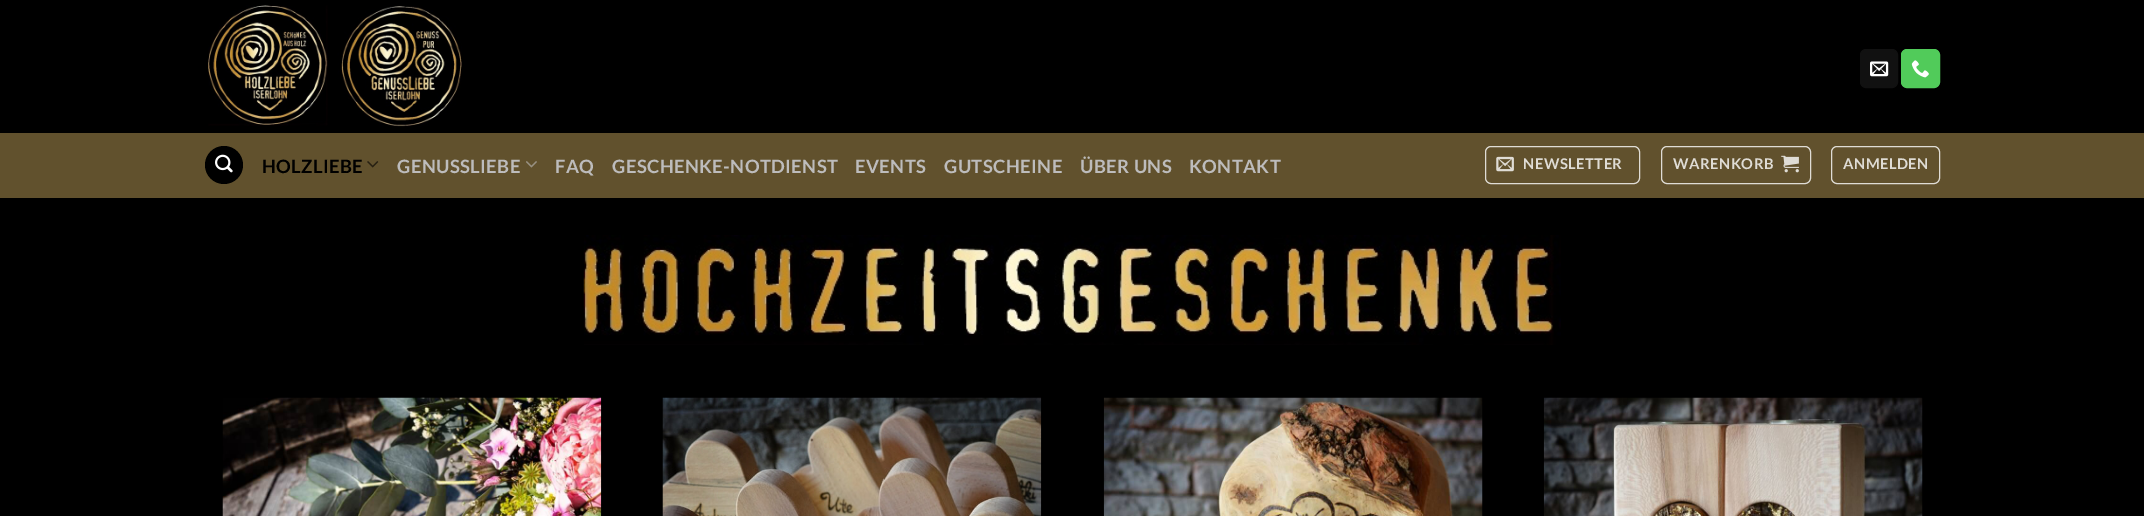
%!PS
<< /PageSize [2144 516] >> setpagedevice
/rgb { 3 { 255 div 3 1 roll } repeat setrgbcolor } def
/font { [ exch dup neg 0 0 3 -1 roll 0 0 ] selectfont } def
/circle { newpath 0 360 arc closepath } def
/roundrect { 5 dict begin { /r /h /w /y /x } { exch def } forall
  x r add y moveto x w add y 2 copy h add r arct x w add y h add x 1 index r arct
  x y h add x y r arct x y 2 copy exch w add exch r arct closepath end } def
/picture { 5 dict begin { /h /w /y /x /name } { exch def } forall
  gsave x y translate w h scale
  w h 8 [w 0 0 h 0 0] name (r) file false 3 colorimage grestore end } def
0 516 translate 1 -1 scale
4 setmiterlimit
0 0 0 rgb
0 0 2144 516 rectfill
(img/1.rgb) 208 5 254 122 picture
17 17 17 rgb
1860.5 49.5 37 38 5.5 roundrect gsave fill grestore
stroke
(img/2.rgb) 1870 61 19 16 picture
81 203 90 rgb
1901.5 49.5 38 38 5.5 roundrect gsave fill grestore
stroke
(img/3.rgb) 1911 60 18 18 picture
97 81 45 rgb
0 133 2144 65 rectfill
0 0 0 rgb
224 165 19 circle fill
(img/4.rgb) 215 154 18 19 picture
(img/5.rgb) 367 161 12 7 picture
(img/6.rgb) 526 161 11 7 picture
223 220 213 rgb
1485.5 146.5 154 37 5.5 roundrect stroke
(img/7.rgb) 1496 156 18 16 picture
1661.5 146.5 149 37 5.5 roundrect stroke
(img/8.rgb) 1781 155 18 18 picture
1831.5 146.5 108 37 5.5 roundrect stroke
(img/9.rgb) 583 235 978 110 picture
(img/10.rgb) 222 397 380 119 picture
(img/11.rgb) 662 397 380 119 picture
(img/12.rgb) 1103 397 380 119 picture
(img/13.rgb) 1543 397 380 119 picture
/Lato-Bold 18.4 font
0 0 0 rgb
262 173 moveto 0.4 0 (HOLZLIEBE) ashow
189 188 188 rgb
397 173 moveto 0.4 0 (GENUSSLIEBE) ashow
555 173 moveto 0.4 0 (FAQ) ashow
612 173 moveto 0.4 0 (GESCHENKE-NOTDIENST) ashow
855 173 moveto 0.4 0 (EVENTS) ashow
944 173 moveto 0.4 0 (GUTSCHEINE) ashow
1080 173 moveto 0.4 0 (ÜBER UNS) ashow
1189 173 moveto 0.4 0 (KONTAKT) ashow
/Lato-Bold 14.75 font
223 220 213 rgb
1523 169 moveto 0.5 0 (NEWSLETTER) ashow
1673 169 moveto 0.5 0 (WARENKORB) ashow
1843 169 moveto 0.5 0 (ANMELDEN) ashow
showpage
